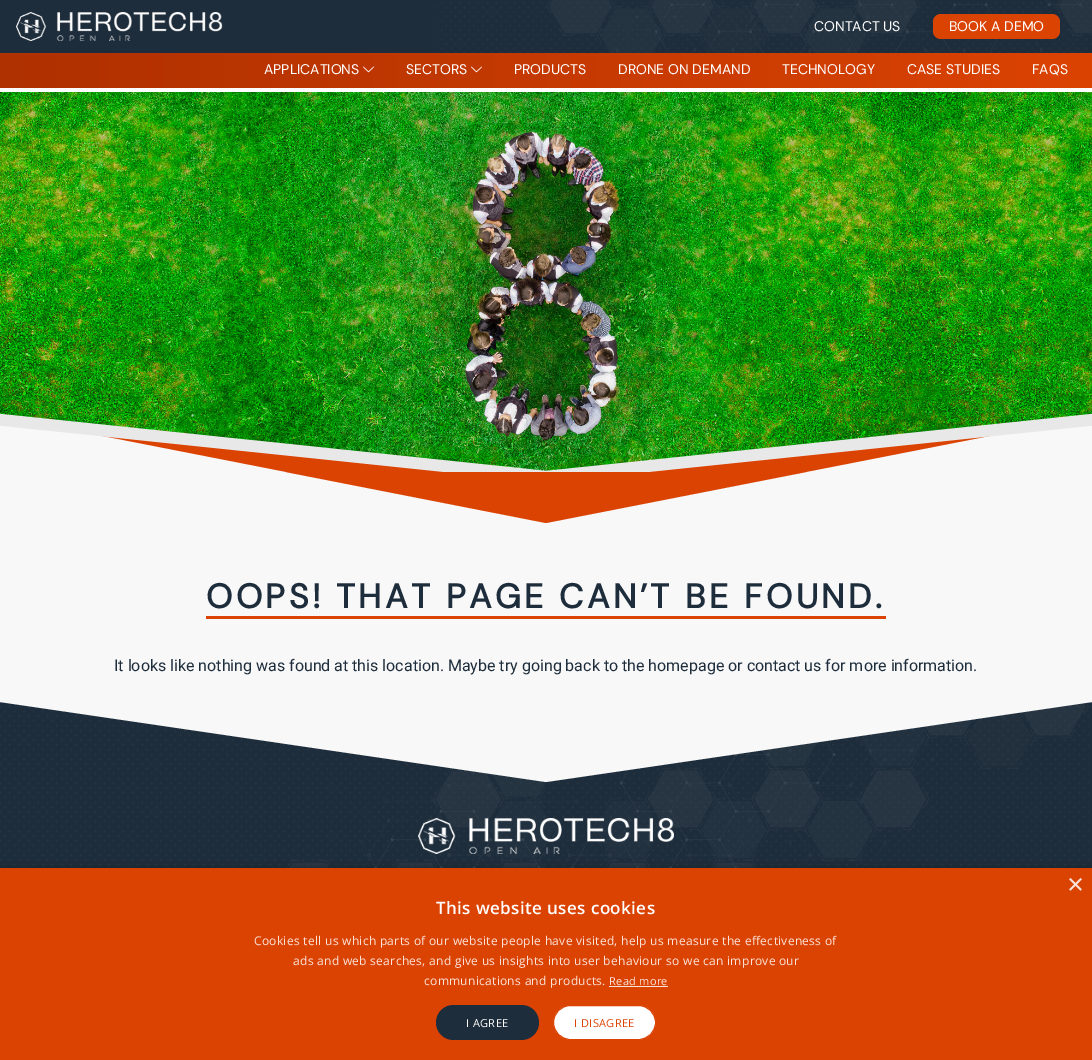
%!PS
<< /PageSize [1092 1060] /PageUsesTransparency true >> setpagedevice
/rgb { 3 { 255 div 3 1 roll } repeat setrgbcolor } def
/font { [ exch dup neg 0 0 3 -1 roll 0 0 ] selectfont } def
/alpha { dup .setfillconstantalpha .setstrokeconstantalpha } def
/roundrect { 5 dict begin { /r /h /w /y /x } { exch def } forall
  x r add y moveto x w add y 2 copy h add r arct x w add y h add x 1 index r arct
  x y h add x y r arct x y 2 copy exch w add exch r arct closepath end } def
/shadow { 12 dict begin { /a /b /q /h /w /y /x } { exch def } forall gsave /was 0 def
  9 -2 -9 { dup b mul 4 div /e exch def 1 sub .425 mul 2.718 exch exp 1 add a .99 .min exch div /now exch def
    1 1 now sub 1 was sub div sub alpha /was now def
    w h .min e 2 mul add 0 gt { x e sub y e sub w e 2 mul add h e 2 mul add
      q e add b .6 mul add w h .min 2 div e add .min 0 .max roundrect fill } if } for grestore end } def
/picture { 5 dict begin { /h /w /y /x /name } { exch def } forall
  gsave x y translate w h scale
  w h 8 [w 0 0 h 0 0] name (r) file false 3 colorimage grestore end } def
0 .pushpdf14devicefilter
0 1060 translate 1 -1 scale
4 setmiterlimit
248 248 248 rgb
0 0 1092 1060 rectfill
255 255 255 rgb
0 88 1092 4 rectfill
30 45 59 rgb
0 0 1092 53 rectfill
(img/1.rgb) 16 12 207 29 picture
(img/2.rgb) 437 0 655 53 picture
219 67 3 rgb
933 14 127 25 8 roundrect fill
gsave 0 53 moveto 1092 53 lineto 1092 88 lineto 0 88 lineto closepath clip newpath
<< /ShadingType 2 /ColorSpace /DeviceRGB /Coords [0 71 1092 70] /Extend [true true] /Function << /FunctionType 2 /Domain [0 1] /C0 [0.686 0.188 0] /C1 [0.859 0.263 0.012] /N 1 >> >> shfill grestore
(img/3.rgb) 363 66 11 7 picture
(img/4.rgb) 471 66 11 7 picture
0 411 moveto 0 416 lineto 546 523 lineto 1092 416 lineto 1092 411 lineto closepath fill
(img/5.rgb) 0 92 1092 380 picture
206 616 680 3 rectfill
30 45 59 rgb
0 702 1092 166 rectfill
(img/6.rgb) 0 702 1089 166 picture
248 248 248 rgb
0 702 moveto 1092 702 lineto 546 782 lineto closepath fill
(img/7.rgb) 418 818 256 36 picture
0 0 0 rgb
1 870 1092 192 0 4 0.35 shadow
219 67 3 rgb
0 868 1092 192 rectfill
250 227 217 rgb
609 986 59 1 rectfill
30 45 59 rgb
436 1005 103 35 17.5 roundrect fill
255 255 255 rgb
553.5 1005.5 102 34 17 roundrect gsave fill grestore
219 67 3 rgb
stroke
/DMSans-Regular 14 font
255 255 255 rgb
[
  [(CONTACT US) 814 31]
  [(BOOK A DEMO) 949 31]
  [(APPLICATIONS) 264 74]
  [(SECTORS) 406 74]
  [(PRODUCTS) 514 74]
  [(DRONE ON DEMAND) 618 74]
  [(TECHNOLOGY) 782 74]
  [(CASE STUDIES) 907 74]
  [(FAQS) 1032 74]
] { aload pop moveto show } forall
/DMSans-Bold 34 font
30 45 59 rgb
206 608 moveto 3.4 0 (OOPS! THAT PAGE CAN’T BE FOUND.) ashow
/Roboto-Regular 16 font
114 671 moveto (It looks like nothing was found at this location. Maybe try going back to the homepage or contact us for more information.) show
/LiberationSans-Regular 29 font
250 227 217 rgb
1067 894 moveto (×) show
/OpenSans-SemiBold 17 font
255 255 255 rgb
436 914 moveto 0.4 0 (This website uses cookies) ashow
/OpenSans-Regular 12 font
250 227 217 rgb
254 945 moveto 0.3 0 (Cookies tell us which parts of our website people have visited, help us measure the effectiveness of) ashow
293 965 moveto 0.3 0 (ads and web searches, and give us insights into user behaviour so we can improve our) ashow
424 985 moveto 0.3 0 (communications and products.) ashow
/OpenSans-Regular 11 font
609 985 moveto 0.3 0 (Read more) ashow
255 255 255 rgb
466 1027 moveto 0.4 0 (I AGREE) ashow
219 67 3 rgb
574 1027 moveto 0.4 0 (I DISAGREE) ashow
.poppdf14devicefilter showpage
